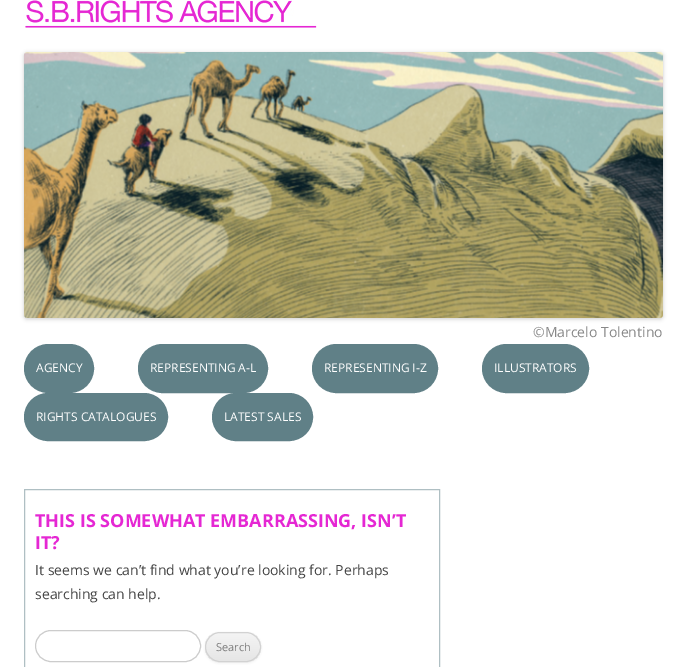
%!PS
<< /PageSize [687 667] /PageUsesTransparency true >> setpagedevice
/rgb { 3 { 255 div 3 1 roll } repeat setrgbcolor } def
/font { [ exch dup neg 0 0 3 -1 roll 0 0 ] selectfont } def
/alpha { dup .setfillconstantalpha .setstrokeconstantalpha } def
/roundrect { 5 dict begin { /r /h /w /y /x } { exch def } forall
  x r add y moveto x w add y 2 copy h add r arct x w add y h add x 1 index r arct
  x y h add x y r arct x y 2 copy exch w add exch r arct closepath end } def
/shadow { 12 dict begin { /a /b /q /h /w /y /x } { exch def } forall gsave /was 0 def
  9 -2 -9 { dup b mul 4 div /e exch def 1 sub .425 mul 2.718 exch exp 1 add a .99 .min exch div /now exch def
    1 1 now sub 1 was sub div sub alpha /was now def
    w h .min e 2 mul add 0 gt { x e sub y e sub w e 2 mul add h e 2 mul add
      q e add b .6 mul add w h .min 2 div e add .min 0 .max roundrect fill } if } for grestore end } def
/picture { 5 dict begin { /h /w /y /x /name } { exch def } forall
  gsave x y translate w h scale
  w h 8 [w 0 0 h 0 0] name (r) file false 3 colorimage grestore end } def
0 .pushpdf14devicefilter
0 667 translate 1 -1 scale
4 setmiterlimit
255 255 255 rgb
0 0 687 667 rectfill
(img/1.rgb) 23 0 294 28 picture
0 0 0 rgb
24 53 639 266 3 2 0.2 shadow
(img/2.rgb) 24 52 639 266 picture
96 128 135 rgb
25 345 68 47 23.5 roundrect gsave fill grestore
2 setlinewidth
stroke
139 345 128 47 23.5 roundrect gsave fill grestore
stroke
313 345 124 47 23.5 roundrect gsave fill grestore
stroke
483 345 105 47 23.5 roundrect gsave fill grestore
stroke
25 394 142 46 23 roundrect gsave fill grestore
stroke
213 394 99 46 23 roundrect gsave fill grestore
stroke
175 191 195 rgb
1 setlinewidth
24.5 489.5 415 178 rectstroke
204 204 204 rgb
35.5 630.5 165 31 15.5 roundrect stroke
64 64 64 rgb
205 633 56 30 15 1 0.1 shadow
gsave
205 632 56 30 15 roundrect clip newpath
gsave 205 633 moveto 261 633 lineto 261 661 lineto 205 661 lineto closepath clip newpath
<< /ShadingType 2 /ColorSpace /DeviceRGB /Coords [233 633 233 661] /Extend [true true] /Function << /FunctionType 2 /Domain [0 1] /C0 [0.957 0.957 0.957] /C1 [0.902 0.902 0.902] /N 1 >> >> shfill grestore
grestore
210 210 210 rgb
205.5 632.5 55 29 14.5 roundrect stroke
/OpenSans-Regular 14 font
136 136 136 rgb
533 337 moveto (©Marcelo Tolentino) show
/OpenSans-Regular 12 font
255 255 255 rgb
[
  [(AGENCY) 36 372]
  [(REPRESENTING A-L) 150 372]
  [(REPRESENTING I-Z) 324 372]
  [(ILLUSTRATORS) 494 372]
  [(RIGHTS CATALOGUES) 36 421]
  [(LATEST SALES) 224 421]
] { aload pop moveto show } forall
/OpenSans-Bold 18 font
229 39 211 rgb
35 527 moveto (THIS IS SOMEWHAT EMBARRASSING, ISN’T) show
35 549 moveto (IT?) show
/OpenSans-Regular 14 font
68 68 68 rgb
35 575 moveto (It seems we can’t find what you’re looking for. Perhaps) show
35 599 moveto (searching can help.) show
/OpenSans-Regular 11 font
124 124 124 rgb
216 651 moveto (Search) show
.poppdf14devicefilter showpage
